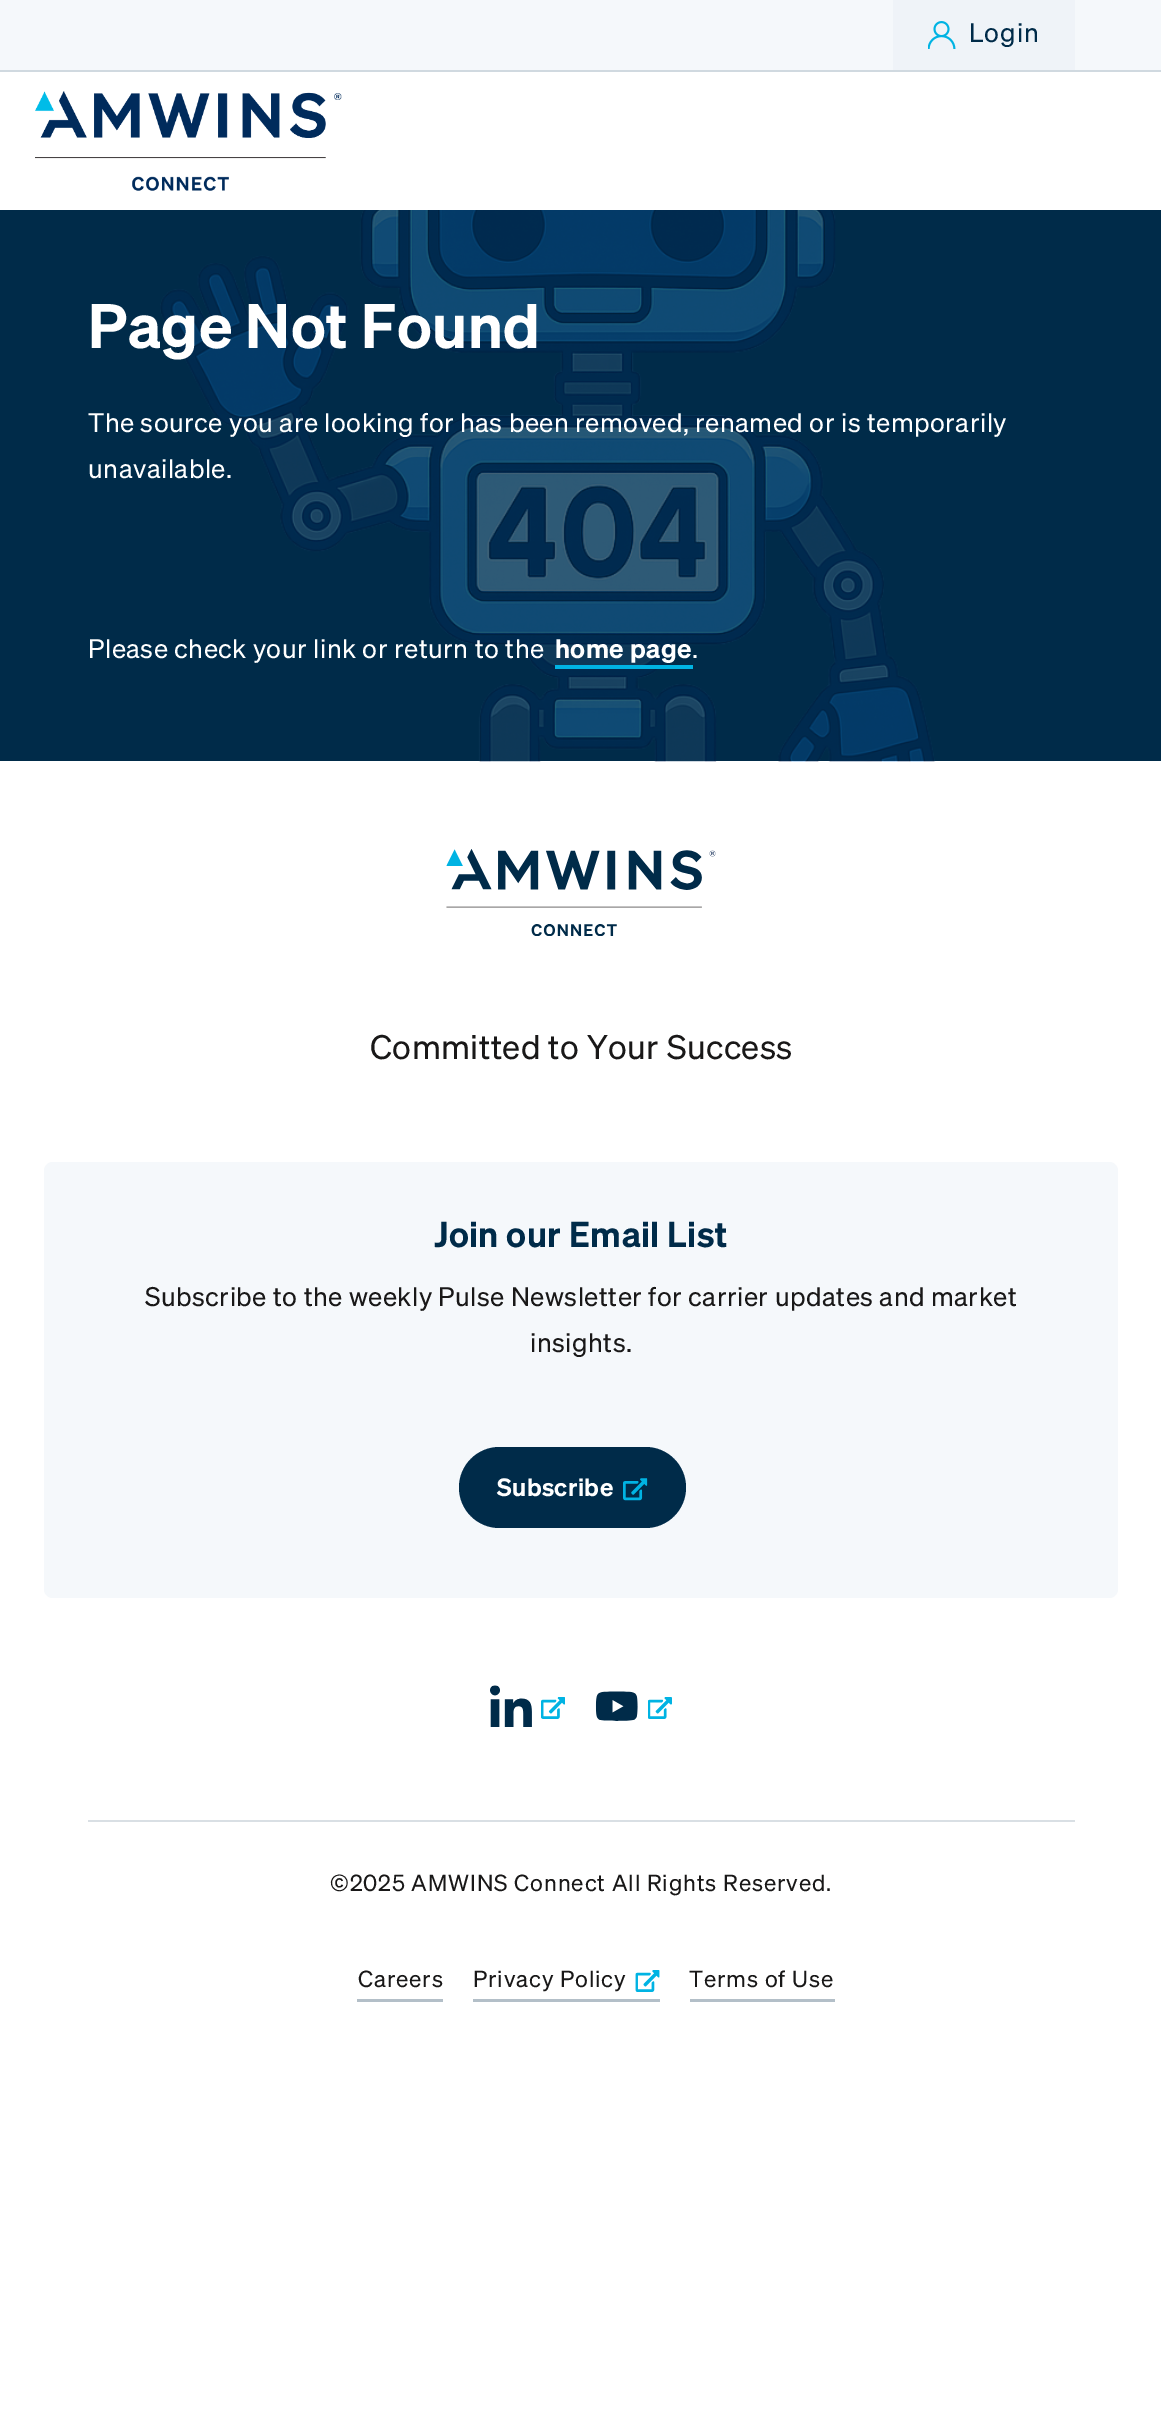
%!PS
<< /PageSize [1161 2425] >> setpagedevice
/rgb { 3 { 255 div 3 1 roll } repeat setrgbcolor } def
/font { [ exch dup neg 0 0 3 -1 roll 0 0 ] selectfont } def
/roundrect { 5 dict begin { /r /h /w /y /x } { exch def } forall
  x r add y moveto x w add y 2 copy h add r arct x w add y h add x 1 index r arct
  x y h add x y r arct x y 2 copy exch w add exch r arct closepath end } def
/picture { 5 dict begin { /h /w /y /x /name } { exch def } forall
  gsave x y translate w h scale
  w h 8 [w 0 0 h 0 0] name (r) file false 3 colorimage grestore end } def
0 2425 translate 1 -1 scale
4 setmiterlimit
255 255 255 rgb
0 0 1161 2425 rectfill
[
  [0 0 1161 70 245 248 251]
  [0 70 1161 2 208 217 224]
  [893 0 182 70 239 243 248]
] { aload pop rgb rectfill } forall
(img/1.rgb) 928 21 28 28 picture
(img/2.rgb) 35 91 307 100 picture
0 43 73 rgb
0 210 1161 551 rectfill
(img/3.rgb) 160 210 776 552 picture
0 179 227 rgb
555 665 138 4 rectfill
(img/4.rgb) 446 849 270 87 picture
245 248 251 rgb
44 1162 1074 436 9 roundrect fill
0 43 73 rgb
459 1447 227 81 40.5 roundrect fill
(img/5.rgb) 623 1478 25 23 picture
(img/6.rgb) 490 1685 42 42 picture
(img/7.rgb) 541 1697 24 22 picture
(img/8.rgb) 595 1691 43 30 picture
(img/9.rgb) 648 1697 24 22 picture
[
  [88 1820 987 2 217 223 228]
  [357 1999 86 3 179 191 200]
  [473 1999 187 3 179 191 200]
] { aload pop rgb rectfill } forall
(img/10.rgb) 635 1970 25 22 picture
690 1999 145 3 rectfill
/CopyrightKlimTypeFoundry-Regular 26.25 font
0 43 73 rgb
969 42 moveto 0.9 0 (Login) ashow
/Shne-SemiBold 61.25 font
255 255 255 rgb
88 348 moveto 0.45 0 (Page Not Found) ashow
/CopyrightKlimTypeFoundry-Regular 26.25 font
88 432 moveto 0.45 0 (The source you are looking for has been removed, renamed or is temporarily) ashow
88 478 moveto 0.45 0 (unavailable.) ashow
88 658 moveto 0.45 0 (Please check your link or return to the) ashow
/Shne-SemiBold 26.25 font
555 658 moveto 0.45 0 (home page) ashow
/CopyrightKlimTypeFoundry-Regular 26.25 font
692 658 moveto 0.45 0 (.) ashow
/CopyrightKlimTypeFoundry-Regular 33.25 font
25 24 24 rgb
370 1059 moveto 0.45 0 (Committed to Your Success) ashow
/Shne-SemiBold 35 font
0 43 73 rgb
434 1247 moveto 0.45 0 (Join our Email List) ashow
/CopyrightKlimTypeFoundry-Regular 26.25 font
25 24 24 rgb
145 1306 moveto 0.45 0 (Subscribe to the weekly Pulse Newsletter for carrier updates and market) ashow
530 1352 moveto 0.45 0 (insights.) ashow
/Shne-SemiBold 24.5 font
255 255 255 rgb
497 1496 moveto 0.45 0 (Subscribe) ashow
/CopyrightKlimTypeFoundry-Regular 22.75 font
25 24 24 rgb
330 1891 moveto 0.9 0 (©2025 AMWINS Connect All Rights Reserved.) ashow
358 1987 moveto 0.9 0 (Careers) ashow
473 1987 moveto 0.9 0 (Privacy Policy) ashow
689 1987 moveto 0.9 0 (Terms of Use) ashow
showpage
